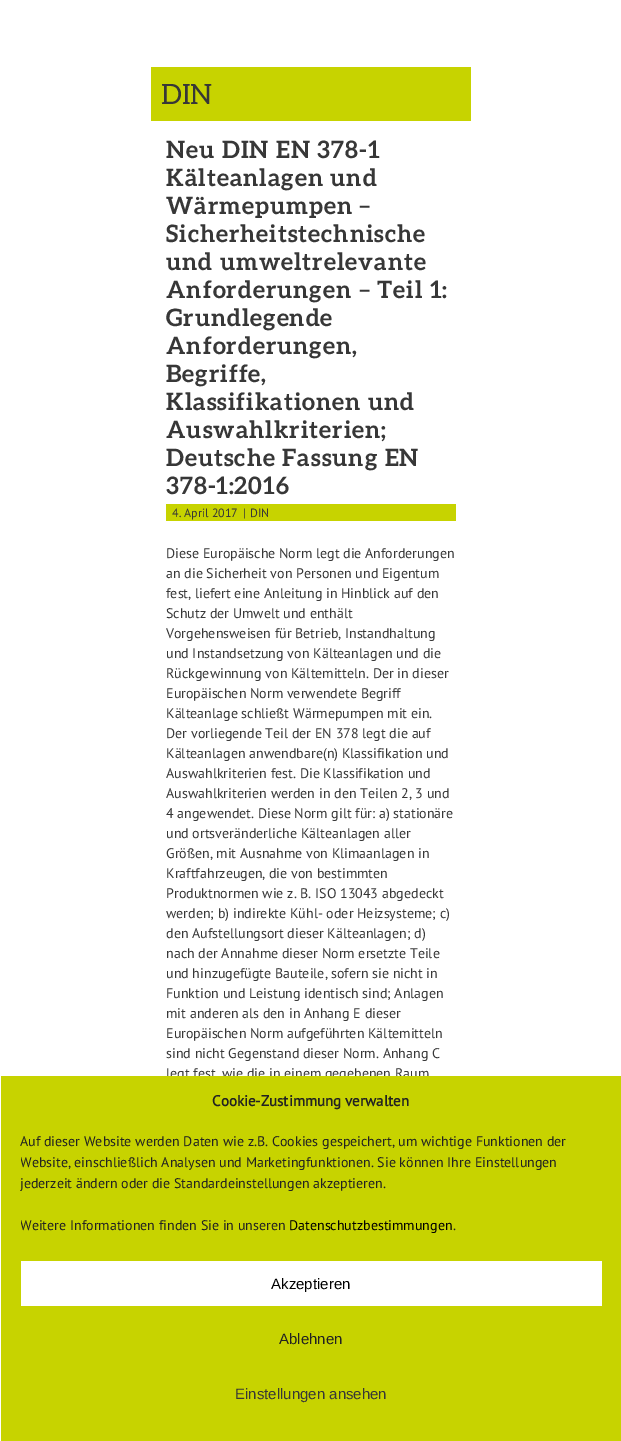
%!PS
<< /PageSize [621 1441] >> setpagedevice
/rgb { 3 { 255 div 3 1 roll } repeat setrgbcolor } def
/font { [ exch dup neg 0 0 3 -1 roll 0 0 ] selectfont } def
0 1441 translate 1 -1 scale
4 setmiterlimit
255 255 255 rgb
0 0 621 1441 rectfill
199 211 0 rgb
151 67 320 54 rectfill
166 504 290 17 rectfill
/Aleo-Regular 28 font
55 55 55 rgb
161 104 moveto (DIN) show
/Aleo-Bold 24 font
166 158 moveto 1 0 (Neu DIN EN 378-1) ashow
166 186 moveto 1 0 (Kälteanlagen und) ashow
166 214 moveto 1 0 (Wärmepumpen –) ashow
166 242 moveto 1 0 (Sicherheitstechnische) ashow
166 270 moveto 1 0 (und umweltrelevante) ashow
166 298 moveto 1 0 (Anforderungen – Teil 1:) ashow
166 326 moveto 1 0 (Grundlegende) ashow
166 354 moveto 1 0 (Anforderungen,) ashow
166 382 moveto 1 0 (Begriffe,) ashow
166 410 moveto 1 0 (Klassifikationen und) ashow
166 438 moveto 1 0 (Auswahlkriterien;) ashow
166 466 moveto 1 0 (Deutsche Fassung EN) ashow
166 494 moveto 1 0 (378-1:2016) ashow
/PTSans-Regular 12 font
[
  [(4. April 2017) 172 517]
  [(|) 243 517]
  [(DIN) 250 517]
] { aload pop moveto show } forall
/PTSans-Regular 14 font
[
  [(Diese Europäische Norm legt die Anforderungen) 166 558]
  [(an die Sicherheit von Personen und Eigentum) 166 578]
  [(fest, liefert eine Anleitung in Hinblick auf den) 166 598]
  [(Schutz der Umwelt und enthält) 166 618]
  [(Vorgehensweisen für Betrieb, Instandhaltung) 166 638]
  [(und Instandsetzung von Kälteanlagen und die) 166 658]
  [(Rückgewinnung von Kältemitteln. Der in dieser) 166 678]
  [(Europäischen Norm verwendete Begriff) 166 698]
  [(Kälteanlage schließt Wärmepumpen mit ein.) 166 718]
  [(Der vorliegende Teil der EN 378 legt die auf) 166 738]
  [(Kälteanlagen anwendbare\(n\) Klassifikation und) 166 758]
  [(Auswahlkriterien fest. Die Klassifikation und) 166 778]
  [(Auswahlkriterien werden in den Teilen 2, 3 und) 166 798]
  [(4 angewendet. Diese Norm gilt für: a\) stationäre) 166 818]
  [(und ortsveränderliche Kälteanlagen aller) 166 838]
  [(Größen, mit Ausnahme von Klimaanlagen in) 166 858]
  [(Kraftfahrzeugen, die von bestimmten) 166 878]
  [(Produktnormen wie z. B. ISO 13043 abgedeckt) 166 898]
  [(werden; b\) indirekte Kühl- oder Heizsysteme; c\)) 166 918]
  [(den Aufstellungsort dieser Kälteanlagen; d\)) 166 938]
  [(nach der Annahme dieser Norm ersetzte Teile) 166 958]
  [(und hinzugefügte Bauteile, sofern sie nicht in) 166 978]
  [(Funktion und Leistung identisch sind; Anlagen) 166 998]
  [(mit anderen als den in Anhang E dieser) 166 1018]
  [(Europäischen Norm aufgeführten Kältemitteln) 166 1038]
  [(sind nicht Gegenstand dieser Norm. Anhang C) 166 1058]
  [(legt fest, wie die in einem gegebenen Raum) 166 1078]
] { aload pop moveto show } forall
199 211 0 rgb
1 1076 620 365 rectfill
/PTSans-Bold 15 font
34 34 34 rgb
212 1106 moveto (Cookie-Zustimmung verwalten) show
/PTSans-Regular 14 font
20 1146 moveto (Auf dieser Website werden Daten wie z.B. Cookies gespeichert, um wichtige Funktionen der) show
gsave
21 1131 581 110 rectclip
20 1167 moveto (Website, einschließlich Analysen und Marketingfunktionen. Sie können Ihre Einstellungen) show
grestore
20 1188 moveto (jederzeit ändern oder die Standardeinstellungen akzeptieren.) show
gsave
21 1131 581 110 rectclip
20 1230 moveto (Weitere Informationen finden Sie in unseren) show
grestore
0 0 0 rgb
289 1230 moveto (Datenschutzbestimmungen) show
34 34 34 rgb
453 1230 moveto (.) show
255 255 255 rgb
21 1261 581 45 rectfill
/LiberationSans-Regular 15 font
0 0 0 rgb
271 1289 moveto (Akzeptieren) show
34 34 34 rgb
279 1344 moveto (Ablehnen) show
55 55 55 rgb
235 1399 moveto (Einstellungen ansehen) show
showpage
